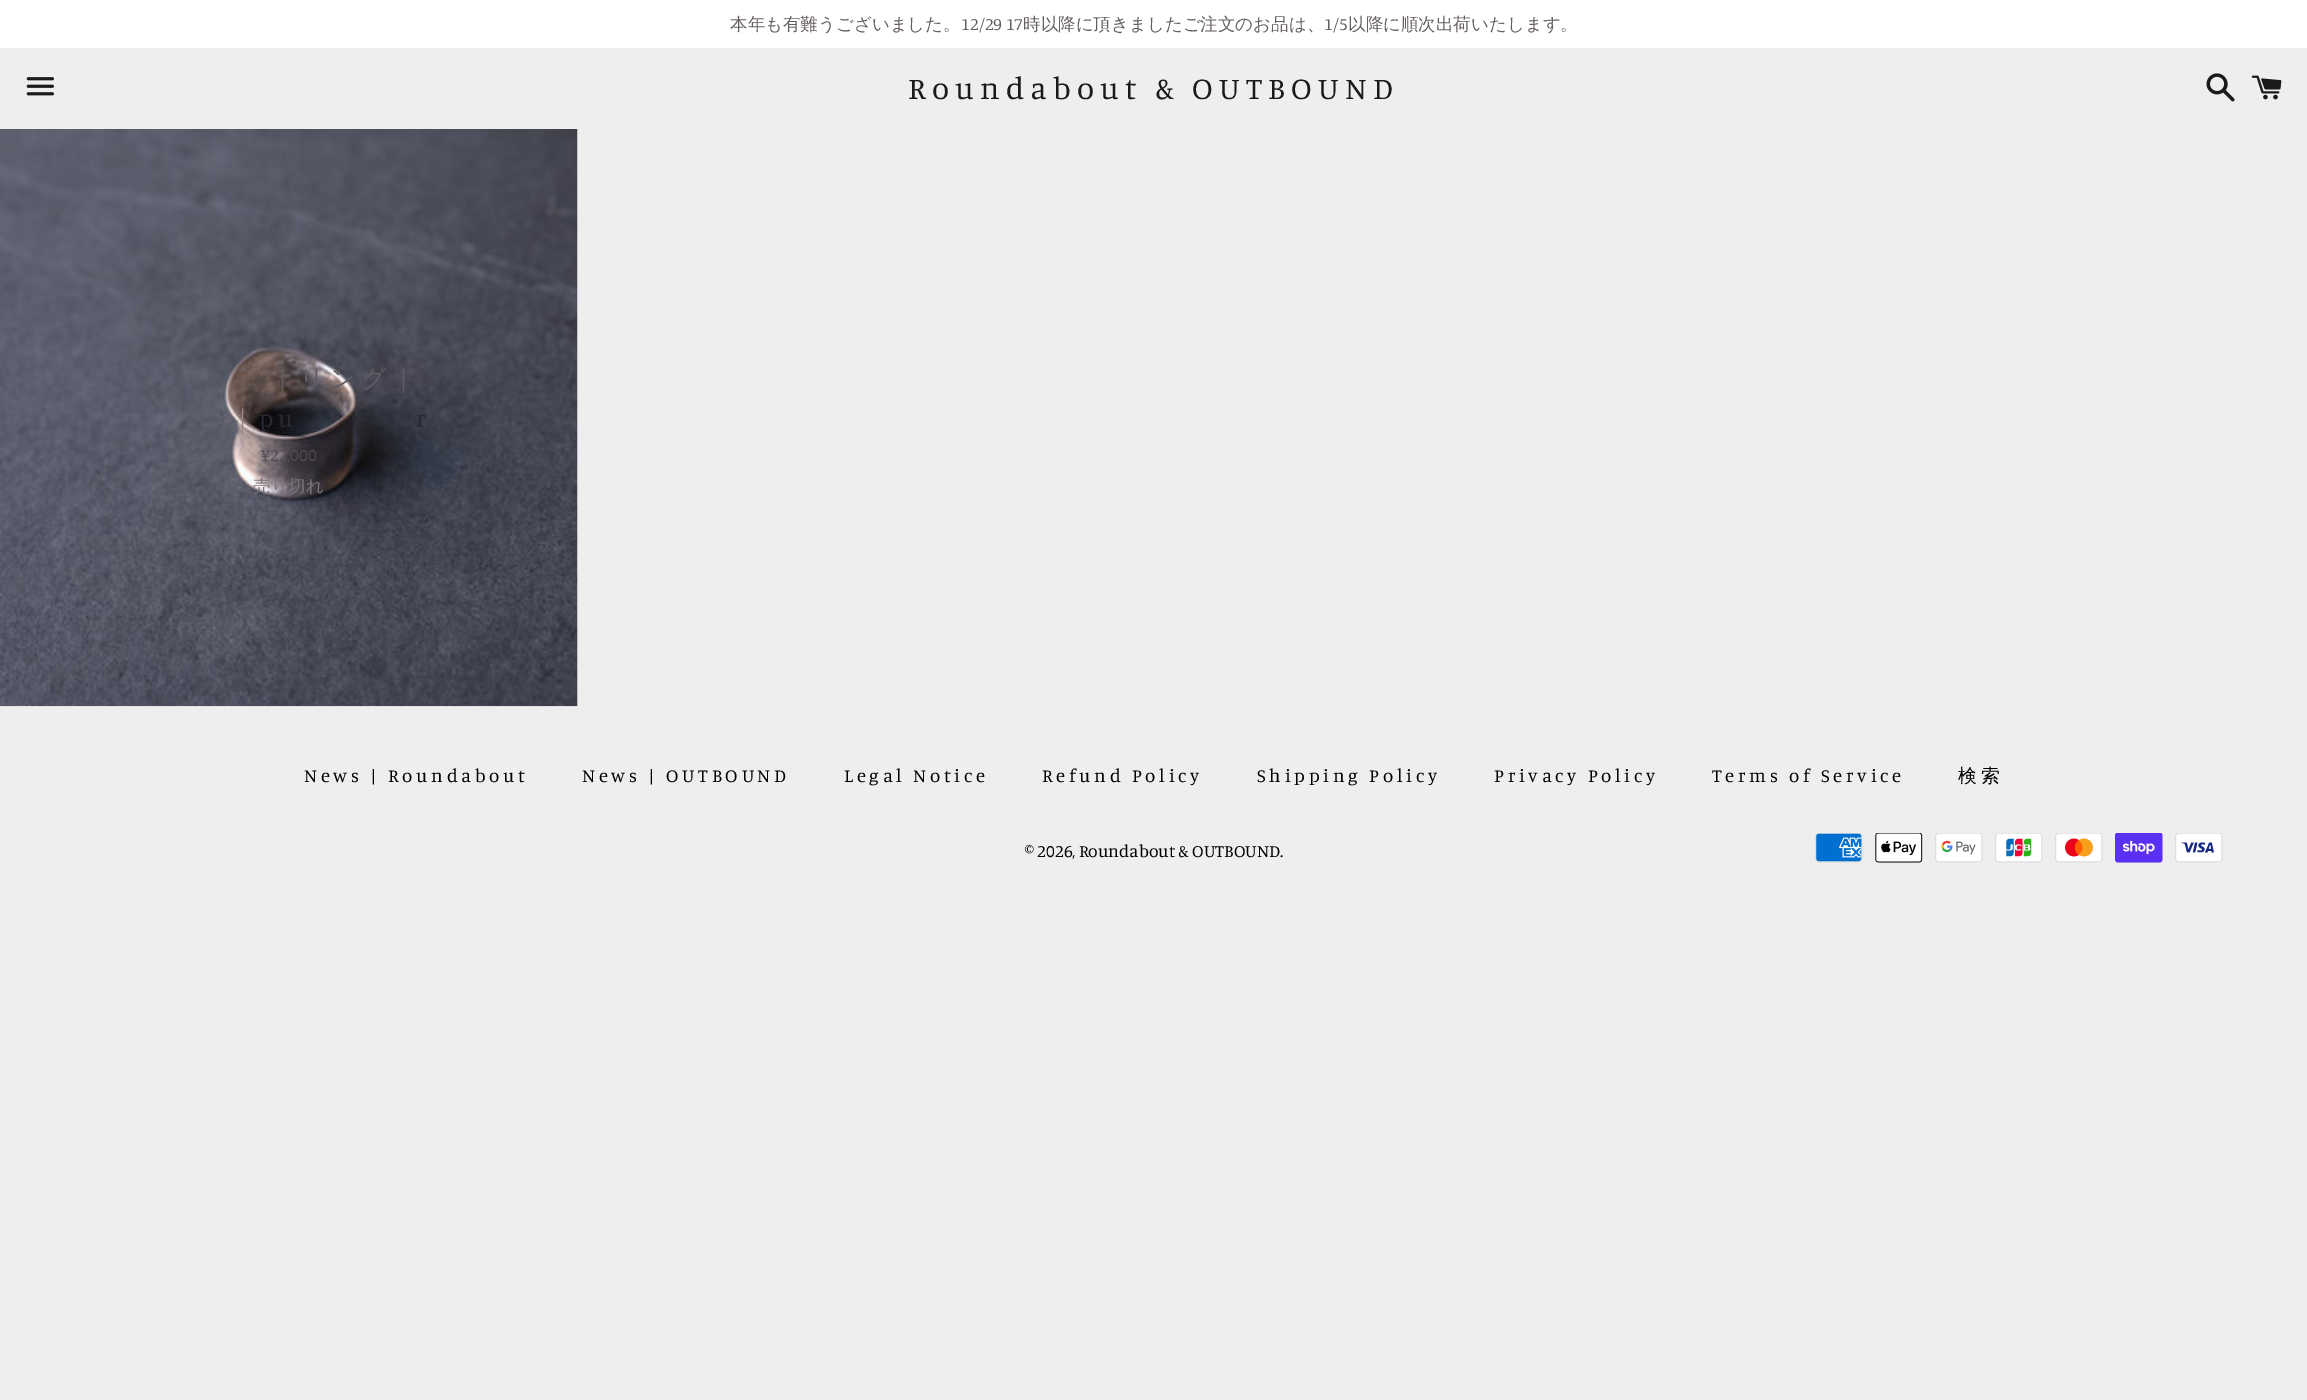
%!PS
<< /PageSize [2307 1400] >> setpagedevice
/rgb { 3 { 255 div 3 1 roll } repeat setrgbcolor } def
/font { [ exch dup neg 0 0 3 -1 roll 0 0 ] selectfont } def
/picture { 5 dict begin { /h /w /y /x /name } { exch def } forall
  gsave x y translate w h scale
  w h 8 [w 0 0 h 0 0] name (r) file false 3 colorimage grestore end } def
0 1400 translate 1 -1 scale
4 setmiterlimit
238 238 238 rgb
0 0 2307 1400 rectfill
255 255 255 rgb
0 0 2307 48 rectfill
(img/1.rgb) 26 77 28 19 picture
(img/2.rgb) 2206 73 29 29 picture
(img/3.rgb) 2251 75 31 25 picture
(img/4.rgb) 0 129 578 578 picture
(img/5.rgb) 1815 833 48 30 picture
(img/6.rgb) 1875 833 48 30 picture
(img/7.rgb) 1935 833 48 30 picture
(img/8.rgb) 1995 833 48 30 picture
(img/9.rgb) 2055 833 48 30 picture
(img/10.rgb) 2115 833 48 30 picture
(img/11.rgb) 2175 833 48 30 picture
/WenQuanYiZenHei-Medium 17.5 font
102 95 95 rgb
730 30 moveto (本年も有難うございました。) show
/Manuale-Regular 17.5 font
961 30 moveto (12/29 17) show
/WenQuanYiZenHei-Medium 17.5 font
1023 30 moveto (時以降に頂きましたご注文のお品は、) show
/Manuale-Regular 17.5 font
1324 30 moveto (1/5) show
/WenQuanYiZenHei-Medium 17.5 font
1348 30 moveto (以降に順次出荷いたします。) show
/Manuale-Regular 31.25 font
26 26 26 rgb
908 99 moveto 6.25 0 (Roundabout & OUTBOUND) ashow
/WenQuanYiZenHei-Medium 25 font
96 92 99 rgb
270 387 moveto 5 0 (｜リング｜) ashow
150 132 128 rgb
230 427 moveto 5 0 (｜) ashow
/Manuale-Regular 25 font
40 40 48 rgb
259 427 moveto 5 0 (pu) ashow
416 427 moveto 5 0 (r) ashow
/Manuale-Regular 17.5 font
82 76 82 rgb
261 461 moveto (¥22,000) show
/WenQuanYiZenHei-Medium 17.5 font
122 115 121 rgb
253 492 moveto (売り切れ) show
/Manuale-Regular 18.75 font
0 0 0 rgb
304 782 moveto 3.75 0 (News | Roundabout) ashow
582 782 moveto 3.75 0 (News | OUTBOUND) ashow
844 782 moveto 3.75 0 (Legal Notice) ashow
1042 782 moveto 3.75 0 (Refund Policy) ashow
1257 782 moveto 3.75 0 (Shipping Policy) ashow
1494 782 moveto 3.75 0 (Privacy Policy) ashow
1712 782 moveto 3.75 0 (Terms of Service) ashow
/WenQuanYiZenHei-Medium 18.75 font
1958 782 moveto 3.75 0 (検索) ashow
/Manuale-Regular 17.5 font
1025 857 moveto (© 2026, Roundabout & OUTBOUND.) show
showpage
